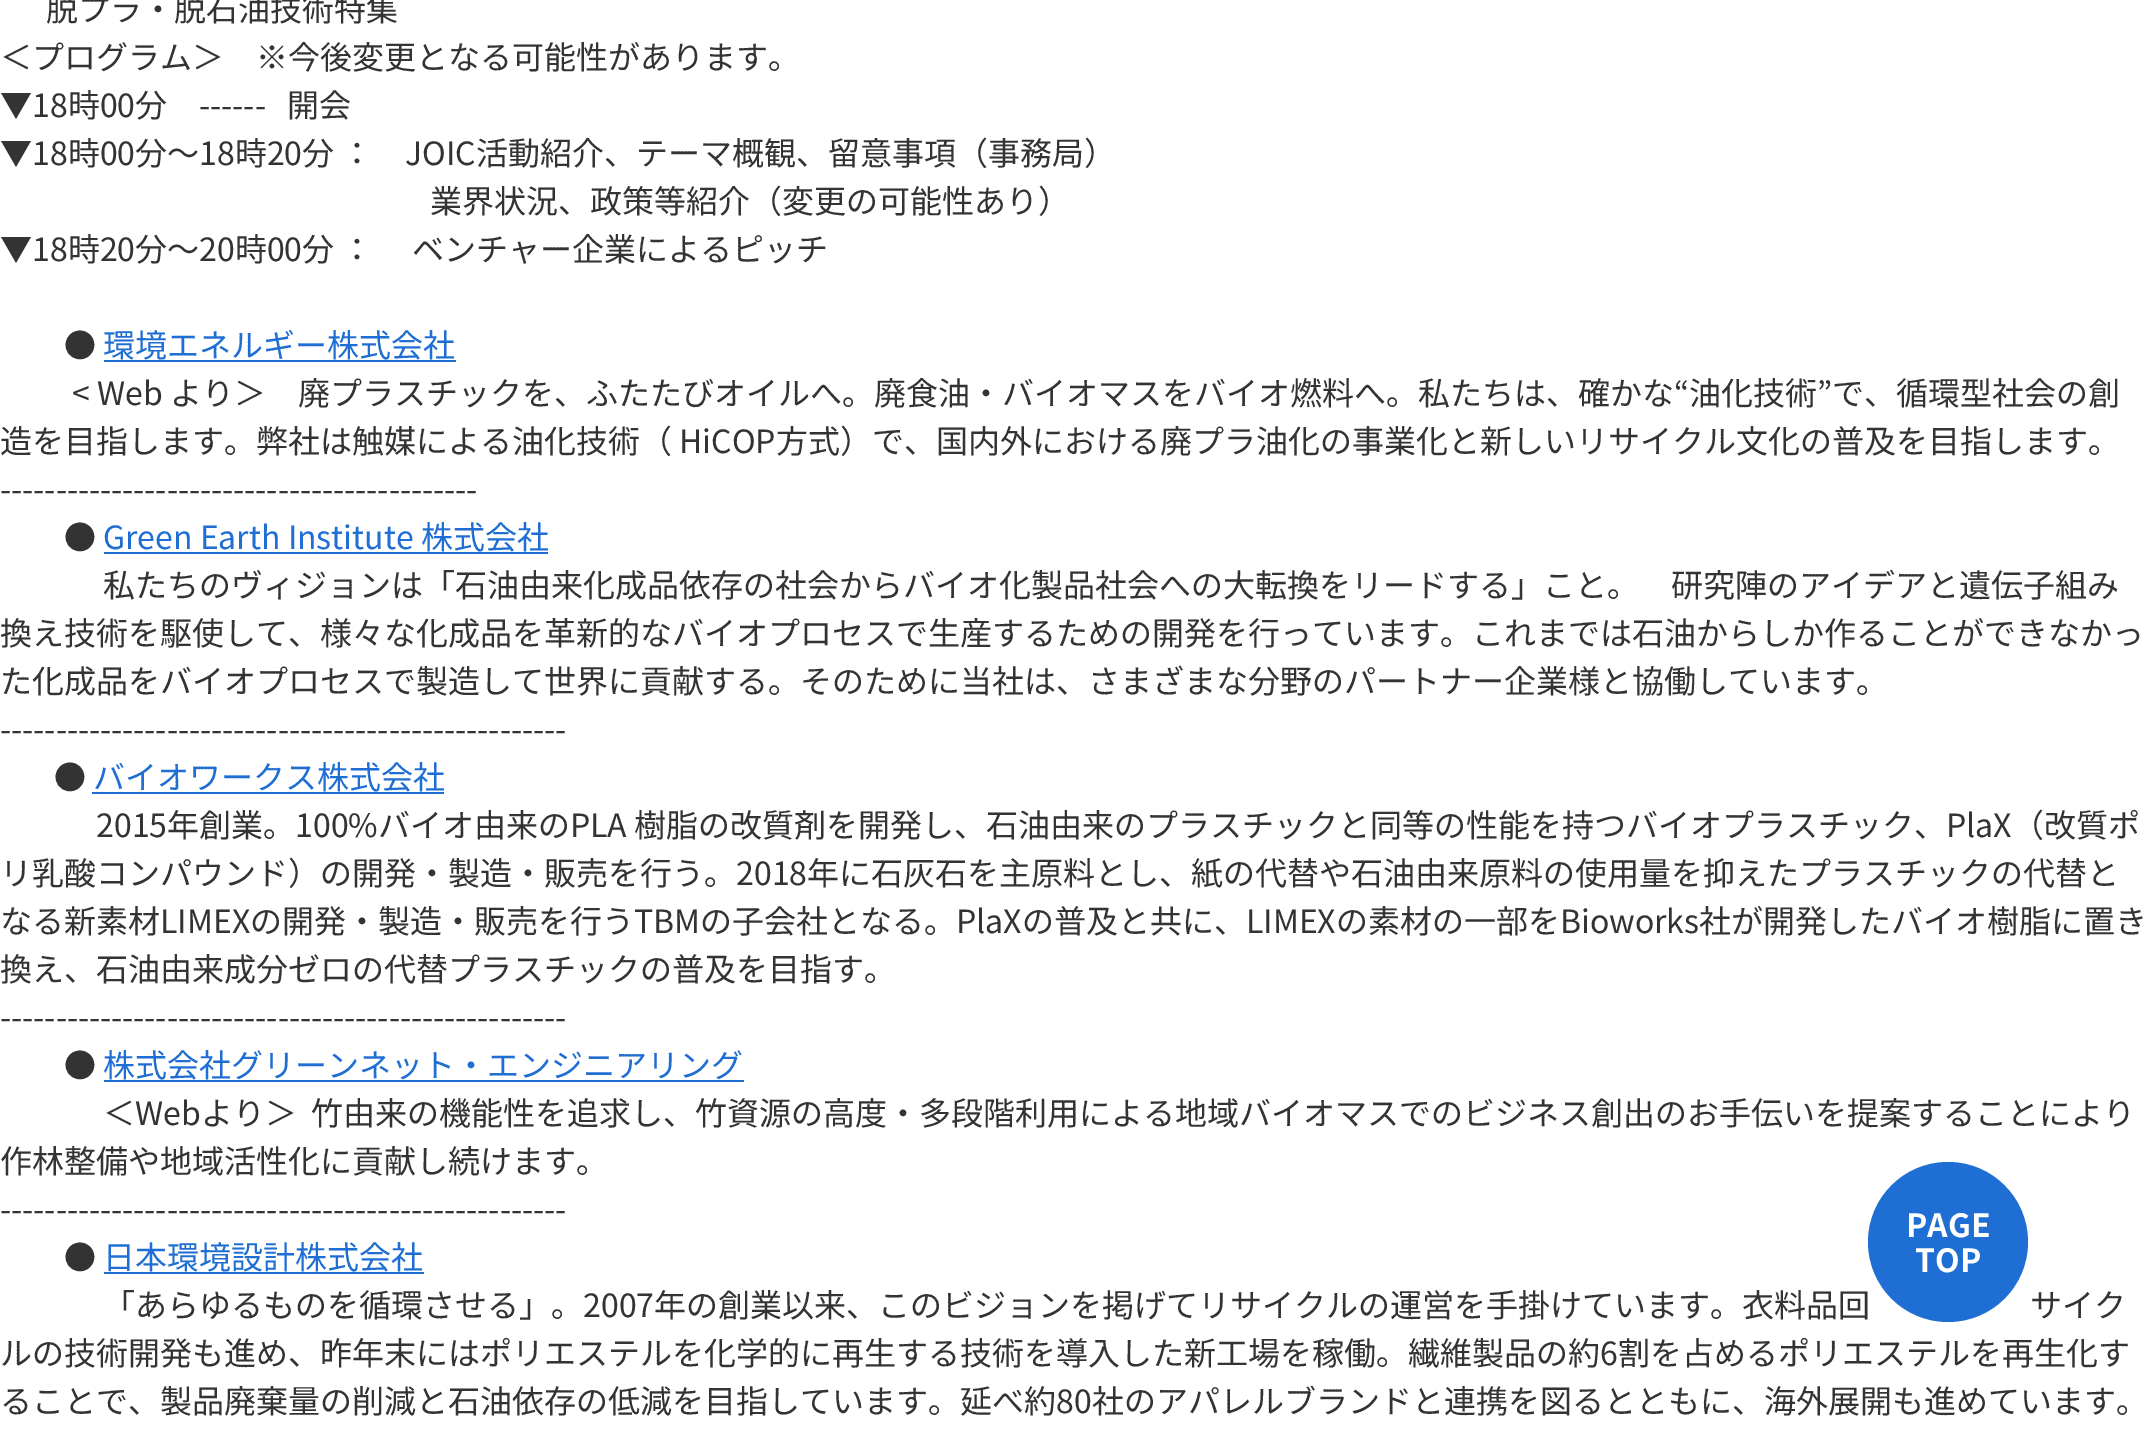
%!PS
<< /PageSize [2147 1442] >> setpagedevice
/rgb { 3 { 255 div 3 1 roll } repeat setrgbcolor } def
/font { [ exch dup neg 0 0 3 -1 roll 0 0 ] selectfont } def
/circle { newpath 0 360 arc closepath } def
0 1442 translate 1 -1 scale
4 setmiterlimit
255 255 255 rgb
0 0 2147 1442 rectfill
[
  [104 360 352 2 31 110 212]
  [104 552 444 2 31 110 212]
  [92 792 352 2 31 110 212]
  [104 1080 640 2 31 110 212]
  [104 1272 320 2 31 110 212]
] { aload pop rgb rectfill } forall
1948 1242 80 circle fill
/NotoSansJP-Regular 32 font
51 51 51 rgb
[
  [(脱プラ・脱石油技術特集) 46 21]
  [(＜プログラム＞　※今後変更となる可能性があります。) 0 69]
  [(▼18時00分　------   開会) 0 117]
  [(▼18時00分～18時20分 ：　JOIC活動紹介、テーマ概観、留意事項（事務局）) 0 165]
  [(業界状況、政策等紹介（変更の可能性あり）) 430 213]
  [(▼18時20分～20時00分 ： 　ベンチャー企業によるピッチ) 0 261]
  [(●) 64 357]
] { aload pop moveto show } forall
31 110 212 rgb
103 357 moveto (環境エネルギー株式会社) show
51 51 51 rgb
[
  [(< Web より＞　廃プラスチックを、ふたたびオイルへ。廃食油・バイオマスをバイオ燃料へ。私たちは、確かな“油化技術”で、循環型社会の創) 72 405]
  [(造を目指します。弊社は触媒による油化技術（ HiCOP方式）で、国内外における廃プラ油化の事業化と新しいリサイクル文化の普及を目指します。) 0 453]
  [(-------------------------------------------) 0 501]
  [(●) 64 549]
] { aload pop moveto show } forall
31 110 212 rgb
103 549 moveto (Green Earth Institute 株式会社) show
51 51 51 rgb
[
  [(私たちのヴィジョンは「石油由来化成品依存の社会からバイオ化製品社会への大転換をリードする」こと。　研究陣のアイデアと遺伝子組み) 103 597]
  [(換え技術を駆使して、様々な化成品を革新的なバイオプロセスで生産するための開発を行っています。これまでは石油からしか作ることができなかっ) 0 645]
  [(た化成品をバイオプロセスで製造して世界に貢献する。そのために当社は、さまざまな分野のパートナー企業様と協働しています。) 0 693]
  [(---------------------------------------------------) 0 741]
  [(●) 54 789]
] { aload pop moveto show } forall
31 110 212 rgb
93 789 moveto (バイオワークス株式会社) show
51 51 51 rgb
[
  [(2015年創業。100%バイオ由来のPLA 樹脂の改質剤を開発し、石油由来のプラスチックと同等の性能を持つバイオプラスチック、PlaX（改質ポ) 96 837]
  [(リ乳酸コンパウンド）の開発・製造・販売を行う。2018年に石灰石を主原料とし、紙の代替や石油由来原料の使用量を抑えたプラスチックの代替と) 0 885]
  [(なる新素材LIMEXの開発・製造・販売を行うTBMの子会社となる。PlaXの普及と共に、LIMEXの素材の一部をBioworks社が開発したバイオ樹脂に置き) 0 933]
  [(換え、石油由来成分ゼロの代替プラスチックの普及を目指す。) 0 981]
  [(---------------------------------------------------) 0 1029]
  [(●) 64 1077]
] { aload pop moveto show } forall
31 110 212 rgb
103 1077 moveto (株式会社グリーンネット・エンジニアリング) show
51 51 51 rgb
[
  [(＜Webより＞  竹由来の機能性を追求し、竹資源の高度・多段階利用による地域バイオマスでのビジネス創出のお手伝いを提案することにより) 103 1125]
  [(作林整備や地域活性化に貢献し続けます。) 0 1173]
  [(---------------------------------------------------) 0 1221]
  [(●) 64 1269]
] { aload pop moveto show } forall
31 110 212 rgb
103 1269 moveto (日本環境設計株式会社) show
51 51 51 rgb
[
  [(「あらゆるものを循環させる」。2007年の創業以来、このビジョンを掲げてリサイクルの運営を手掛けています。衣料品回) 103 1317]
  [(サイク) 2030 1317]
  [(ルの技術開発も進め、昨年末にはポリエステルを化学的に再生する技術を導入した新工場を稼働。繊維製品の約6割を占めるポリエステルを再生化す) 0 1365]
  [(ることで、製品廃棄量の削減と石油依存の低減を目指しています。延べ約80社のアパレルブランドと連携を図るとともに、海外展開も進めています。) 0 1413]
] { aload pop moveto show } forall
/NotoSansJP-Bold 32 font
255 255 255 rgb
1906 1237 moveto (PAGE) show
1915 1272 moveto (TOP) show
showpage
